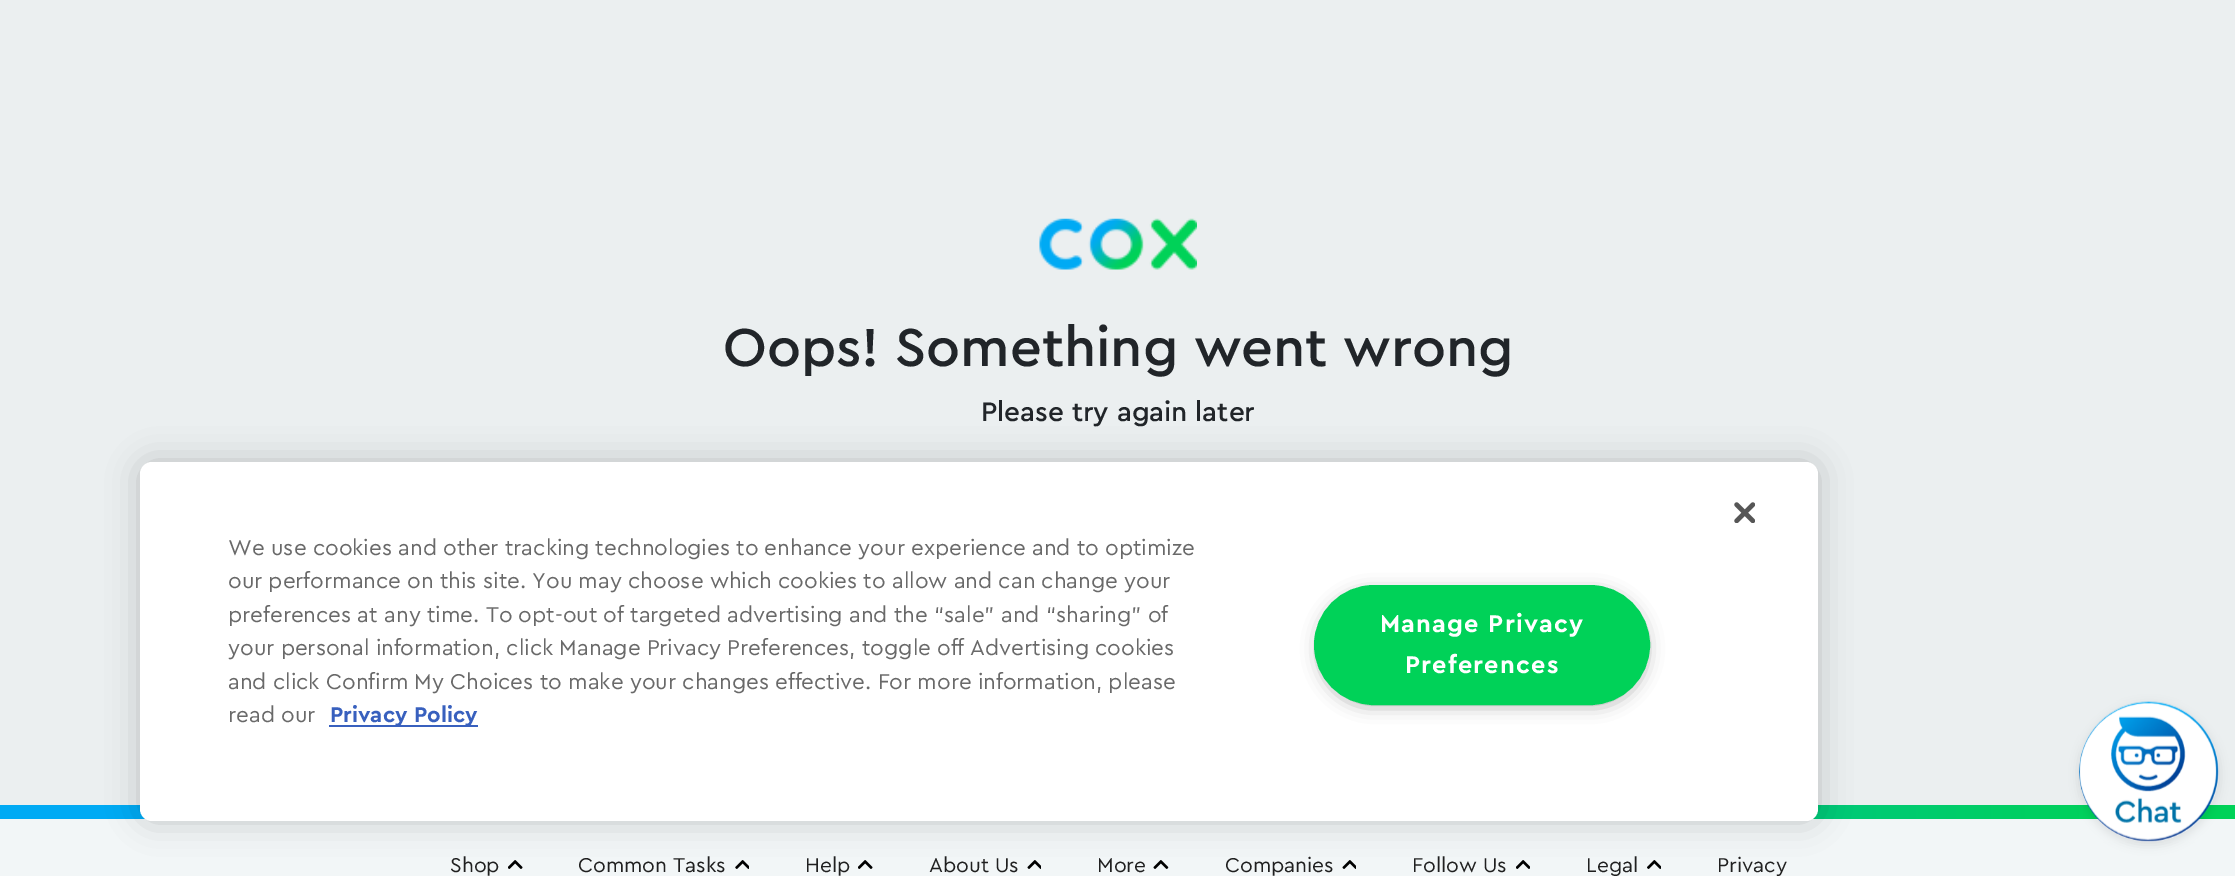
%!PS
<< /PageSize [2235 876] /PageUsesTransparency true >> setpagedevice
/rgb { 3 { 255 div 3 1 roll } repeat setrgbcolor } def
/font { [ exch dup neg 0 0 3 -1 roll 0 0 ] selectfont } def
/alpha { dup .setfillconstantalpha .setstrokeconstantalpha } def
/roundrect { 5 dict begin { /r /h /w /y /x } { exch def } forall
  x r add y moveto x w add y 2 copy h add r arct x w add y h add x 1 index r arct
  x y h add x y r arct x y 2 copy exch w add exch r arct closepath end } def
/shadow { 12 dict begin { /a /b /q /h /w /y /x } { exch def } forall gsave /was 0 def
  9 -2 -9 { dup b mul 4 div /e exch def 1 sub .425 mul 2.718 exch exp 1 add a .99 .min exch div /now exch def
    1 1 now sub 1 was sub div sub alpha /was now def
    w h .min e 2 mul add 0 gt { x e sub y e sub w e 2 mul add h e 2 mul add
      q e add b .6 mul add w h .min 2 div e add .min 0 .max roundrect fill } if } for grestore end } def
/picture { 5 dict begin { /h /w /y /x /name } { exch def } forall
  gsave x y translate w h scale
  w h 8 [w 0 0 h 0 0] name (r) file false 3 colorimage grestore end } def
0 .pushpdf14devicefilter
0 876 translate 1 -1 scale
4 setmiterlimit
235 239 240 rgb
0 0 2235 876 rectfill
(img/1.rgb) 1039 218 158 52 picture
gsave 0 805 moveto 2235 805 lineto 2235 819 lineto 0 819 lineto closepath clip newpath
<< /ShadingType 2 /ColorSpace /DeviceRGB /Coords [0 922 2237 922] /Extend [true true] /Function << /FunctionType 3 /Domain [0 1] /Functions [<< /FunctionType 2 /Domain [0 1] /C0 [0 0.667 0.957] /C1 [0 0.667 0.957] /N 1 >> << /FunctionType 2 /Domain [0 1] /C0 [0 0.667 0.957] /C1 [0 0.824 0.345] /N 1 >> << /FunctionType 2 /Domain [0 1] /C0 [0 0.824 0.345] /C1 [0 0.824 0.345] /N 1 >>] /Bounds [0.3 0.95] /Encode [0 1 0 1 0 1] >> >> shfill grestore
242 246 247 rgb
0 819 2235 57 rectfill
(img/2.rgb) 508 860 15 9 picture
(img/3.rgb) 735 860 14 9 picture
(img/2.rgb) 858 860 15 9 picture
(img/4.rgb) 1027 860 14 9 picture
(img/5.rgb) 1153 860 16 9 picture
(img/4.rgb) 1342 860 14 9 picture
(img/6.rgb) 1516 860 14 9 picture
(img/7.rgb) 1647 860 14 9 picture
0 0 0 rgb
140 462 1678 359 12 16 0.2 shadow
255 255 255 rgb
140 462 1678 359 12 roundrect fill
(img/8.rgb) 1734 502 21 21 picture
56 96 190 rgb
329 725 149 2 rectfill
153 153 153 rgb
1320 593 325 111 55.5 9 1 shadow
0 210 88 rgb
1315 586 334 118 59 roundrect gsave fill grestore
2 setlinewidth
stroke
gsave
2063 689 moveto 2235 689 lineto 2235 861 lineto 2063 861 lineto closepath 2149 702 moveto 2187.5 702 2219 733.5 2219 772 curveto 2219 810.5 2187.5 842 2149 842 curveto 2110.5 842 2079 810.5 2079 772 curveto 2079 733.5 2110.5 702 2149 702 curveto closepath eoclip newpath
0 0 0 rgb
2079 705 140 140 70 5 0.1 shadow
grestore
(img/9.rgb) 2079 701 140 141 picture
/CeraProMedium-Medium 56 font
33 37 41 rgb
723 366 moveto (Oops! Something went wrong) show
/CeraProMedium-Medium 28 font
981 421 moveto (Please try again later) show
/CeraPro-Regular 21 font
32 32 32 rgb
[
  [(Shop) 450 872]
  [(Common Tasks) 578 872]
  [(Help) 805 872]
  [(About Us) 929 872]
  [(More) 1097 872]
  [(Companies) 1225 872]
  [(Follow Us) 1412 872]
  [(Legal) 1586 872]
  [(Privacy) 1717 872]
] { aload pop moveto show } forall
/CeraPro-Regular 22.4 font
105 105 105 rgb
[
  [(We use cookies and other tracking technologies to enhance your experience and to optimize) 228 555]
  [(our performance on this site. You may choose which cookies to allow and can change your) 228 588]
  [(preferences at any time. To opt-out of targeted advertising and the “sale” and “sharing” of) 228 622]
  [(your personal information, click Manage Privacy Preferences, toggle off Advertising cookies) 228 655]
  [(and click Confirm My Choices to make your changes effective. For more information, please) 228 689]
  [(read our) 228 722]
] { aload pop moveto show } forall
/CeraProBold-Bold 22.4 font
56 96 190 rgb
330 722 moveto (Privacy Policy) show
/CeraProBold-Bold 25.25 font
255 255 255 rgb
1380 632 moveto 1.25 0 (Manage Privacy) ashow
1405 673 moveto 1.25 0 (Preferences) ashow
.poppdf14devicefilter showpage
